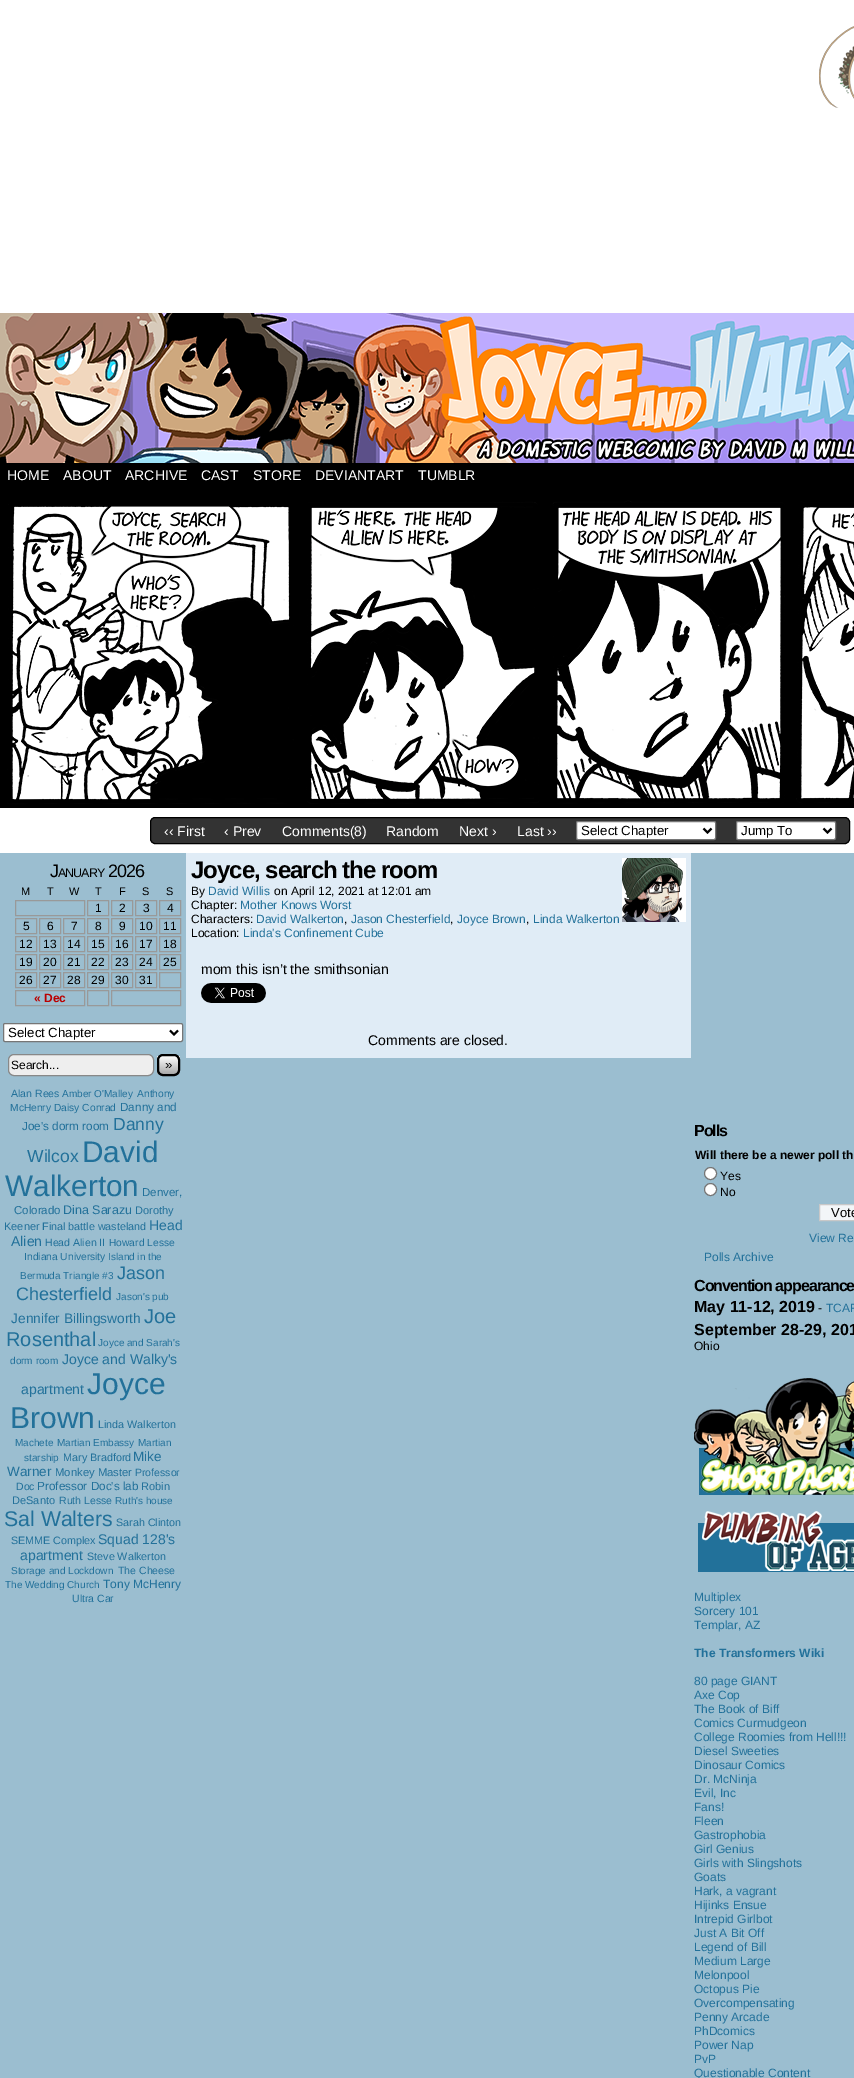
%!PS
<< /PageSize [854 2078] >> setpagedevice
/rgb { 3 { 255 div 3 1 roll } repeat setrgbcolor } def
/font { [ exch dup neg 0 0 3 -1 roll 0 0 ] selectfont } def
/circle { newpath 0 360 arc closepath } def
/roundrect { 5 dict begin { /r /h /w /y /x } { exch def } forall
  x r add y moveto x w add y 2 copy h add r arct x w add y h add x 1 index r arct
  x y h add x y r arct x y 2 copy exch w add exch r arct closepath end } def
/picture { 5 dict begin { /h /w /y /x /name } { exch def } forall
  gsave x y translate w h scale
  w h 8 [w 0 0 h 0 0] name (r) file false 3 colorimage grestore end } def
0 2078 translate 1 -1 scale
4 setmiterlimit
255 255 255 rgb
0 0 854 2078 rectfill
(img/1.rgb) 819 26 35 82 picture
(img/2.rgb) 0 313 854 150 picture
0 0 0 rgb
0 463 854 28 rectfill
(img/3.rgb) 0 491 854 317 picture
51 51 51 rgb
150.5 817.5 699 26 4.5 roundrect gsave fill grestore
0 0 0 rgb
stroke
255 255 255 rgb
576.5 821.5 139 18 1.5 roundrect gsave fill grestore
118 118 118 rgb
stroke
0 0 0 rgb
2 setlinewidth
703.5 828.5 moveto 707.5 832.5 lineto 711.5 828.5 lineto stroke
255 255 255 rgb
736.5 821.5 99 18 1.5 roundrect gsave fill grestore
118 118 118 rgb
1 setlinewidth
stroke
0 0 0 rgb
2 setlinewidth
823.5 828.5 moveto 827.5 832.5 lineto 831.5 828.5 lineto stroke
155 190 208 rgb
0 853 854 1225 rectfill
153 153 153 rgb
1 setlinewidth
15.5 900.5 69 15 rectstroke
87.5 900.5 21 15 rectstroke
111.5 900.5 21 15 rectstroke
135.5 900.5 21 15 rectstroke
159.5 900.5 21 15 rectstroke
15.5 918.5 21 15 rectstroke
39.5 918.5 21 15 rectstroke
63.5 918.5 21 15 rectstroke
87.5 918.5 21 15 rectstroke
111.5 918.5 21 15 rectstroke
135.5 918.5 21 15 rectstroke
159.5 918.5 21 15 rectstroke
15.5 936.5 21 15 rectstroke
39.5 936.5 21 15 rectstroke
63.5 936.5 21 15 rectstroke
87.5 936.5 21 15 rectstroke
111.5 936.5 21 15 rectstroke
135.5 936.5 21 15 rectstroke
159.5 936.5 21 15 rectstroke
15.5 954.5 21 15 rectstroke
39.5 954.5 21 15 rectstroke
63.5 954.5 21 15 rectstroke
87.5 954.5 21 15 rectstroke
111.5 954.5 21 15 rectstroke
135.5 954.5 21 15 rectstroke
159.5 954.5 21 15 rectstroke
15.5 972.5 21 15 rectstroke
39.5 972.5 21 15 rectstroke
63.5 972.5 21 15 rectstroke
87.5 972.5 21 15 rectstroke
111.5 972.5 21 15 rectstroke
135.5 972.5 21 15 rectstroke
159.5 972.5 21 15 rectstroke
15.5 990.5 69 15 rectstroke
87.5 990.5 21 15 rectstroke
111.5 990.5 69 15 rectstroke
255 255 255 rgb
3.5 1023.5 179 18 1.5 roundrect gsave fill grestore
118 118 118 rgb
stroke
0 0 0 rgb
2 setlinewidth
170 1030.5 moveto 174 1034.5 lineto 178 1030.5 lineto stroke
238 238 238 rgb
8.5 1054.5 145 21 5.5 roundrect gsave fill grestore
136 136 136 rgb
1 setlinewidth
stroke
gsave
157 1054 23 22 6 roundrect clip newpath
gsave 157 1056 moveto 180 1056 lineto 180 1074 lineto 157 1074 lineto closepath clip newpath
<< /ShadingType 2 /ColorSpace /DeviceRGB /Coords [159 1056 159 1074] /Extend [true true] /Function << /FunctionType 2 /Domain [0 1] /C0 [1 1 1] /C1 [0.667 0.667 0.667] /N 1 >> >> shfill grestore
grestore
0 0 0 rgb
2 setlinewidth
158 1055 21 20 5 roundrect stroke
224 236 246 rgb
186 853 505 205 rectfill
(img/4.rgb) 622 858 64 64 picture
(img/5.rgb) 201 983 65 20 picture
255 255 255 rgb
710.5 1173.5 6 circle gsave fill grestore
118 118 118 rgb
1 setlinewidth
stroke
255 255 255 rgb
710.5 1189.5 6 circle gsave fill grestore
118 118 118 rgb
stroke
243 246 248 rgb
819.5 1204.5 moveto 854.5 1204.5 lineto 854.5 1220.5 lineto 819.5 1220.5 lineto closepath gsave fill grestore
200 200 200 rgb
stroke
(img/6.rgb) 694 1378 160 117 picture
(img/7.rgb) 698 1511 156 61 picture
/LiberationSans-Regular 14 font
255 255 255 rgb
[
  [(HOME) 7 480]
  [(ABOUT) 63 480]
  [(ARCHIVE) 125 480]
  [(CAST) 201 480]
  [(STORE) 253 480]
  [(DEVIANTART) 315 480]
  [(TUMBLR) 418 480]
  [(‹‹ First) 164 836]
  [(‹ Prev) 224 836]
  [(Comments\(8\)) 282 836]
  [(Random) 386 836]
  [(Next ›) 459 836]
  [(Last ››) 517 836]
] { aload pop moveto show } forall
/LiberationSans-Regular 13.25 font
0 0 0 rgb
581 835 moveto (Select Chapter) show
741 835 moveto (Jump To) show
/LiberationSans-Regular 18 font
50 877 moveto -1 0 (J) ashow
/LiberationSans-Regular 12.5 font
58 877 moveto -1 0 (ANUARY) ashow
/LiberationSans-Regular 18 font
108 877 moveto -1 0 (2026) ashow
/LiberationSans-Regular 11 font
[
  [(M) 21 895]
  [(T) 47 895]
  [(W) 69 895]
  [(T) 95 895]
  [(F) 119 895]
  [(S) 142 895]
  [(S) 166 895]
] { aload pop moveto show } forall
/LiberationSans-Regular 12 font
[
  [(1) 95 912]
  [(2) 119 912]
  [(3) 143 912]
  [(4) 167 912]
  [(5) 23 930]
  [(6) 47 930]
  [(7) 71 930]
  [(8) 95 930]
  [(9) 119 930]
  [(10) 139 930]
  [(11) 163 930]
  [(12) 19 948]
  [(13) 43 948]
  [(14) 67 948]
  [(15) 91 948]
  [(16) 115 948]
  [(17) 139 948]
  [(18) 163 948]
  [(19) 19 966]
  [(20) 43 966]
  [(21) 67 966]
  [(22) 91 966]
  [(23) 115 966]
  [(24) 139 966]
  [(25) 163 966]
  [(26) 19 984]
  [(27) 43 984]
  [(28) 67 984]
  [(29) 91 984]
  [(30) 115 984]
  [(31) 139 984]
] { aload pop moveto show } forall
/LiberationSans-Bold 12 font
187 0 0 rgb
34 1002 moveto (« Dec) show
/LiberationSans-Regular 13.25 font
0 0 0 rgb
8 1037 moveto (Select Chapter) show
/LiberationSans-Regular 12 font
11 1069 moveto (Search...) show
/LiberationSans-Regular 13.25 font
165 1069 moveto (») show
/LiberationSans-Regular 10.5 font
34 113 154 rgb
11 1097 moveto (Alan Rees) show
/LiberationSans-Regular 10 font
62 1097 moveto (Amber O'Malley) show
/LiberationSans-Regular 10.25 font
[
  [(Anthony) 137 1097]
  [(McHenry) 10 1111]
  [(Daisy Conrad) 54 1111]
] { aload pop moveto show } forall
/LiberationSans-Regular 11.75 font
120 1111 moveto (Danny and) show
22 1130 moveto (Joe's dorm room) show
/LiberationSans-Regular 17.5 font
113 1130 moveto (Danny) show
27 1162 moveto (Wilcox) show
/LiberationSans-Regular 29.75 font
82 1162 moveto (David) show
5 1196 moveto (Walkerton) show
/LiberationSans-Regular 11.5 font
142 1196 moveto (Denver,) show
14 1214 moveto (Colorado) show
/LiberationSans-Regular 12.5 font
63 1214 moveto (Dina Sarazu) show
/LiberationSans-Regular 11 font
135 1214 moveto (Dorothy) show
4 1230 moveto (Keener) show
/LiberationSans-Regular 10.75 font
42 1230 moveto (Final battle wasteland) show
/LiberationSans-Regular 14 font
149 1230 moveto (Head) show
11 1246 moveto (Alien) show
/LiberationSans-Regular 10.5 font
45 1246 moveto (Head Alien II) show
/LiberationSans-Regular 10.25 font
109 1246 moveto (Howard Lesse) show
24 1260 moveto (Indiana University) show
/LiberationSans-Regular 10 font
108 1260 moveto (Island in the) show
20 1279 moveto (Bermuda Triangle #3) show
/LiberationSans-Regular 18 font
117 1279 moveto (Jason) show
16 1300 moveto (Chesterfield) show
/LiberationSans-Regular 10 font
116 1300 moveto (Jason's pub) show
/LiberationSans-Regular 13.75 font
11 1323 moveto (Jennifer Billingsworth) show
/LiberationSans-Regular 20 font
144 1323 moveto (Joe) show
6 1346 moveto (Rosenthal) show
/LiberationSans-Regular 10 font
98 1346 moveto (Joyce and Sarah's) show
10 1364 moveto (dorm room) show
/LiberationSans-Regular 14 font
62 1364 moveto (Joyce and Walky's) show
21 1394 moveto (apartment) show
/LiberationSans-Regular 30 font
87 1394 moveto (Joyce) show
10 1428 moveto (Brown) show
/LiberationSans-Regular 10.75 font
98 1428 moveto (Linda Walkerton) show
/LiberationSans-Regular 10 font
[
  [(Machete) 15 1446]
  [(Martian Embassy) 57 1446]
  [(Martian) 138 1446]
  [(starship) 24 1461]
] { aload pop moveto show } forall
/LiberationSans-Regular 10.75 font
63 1461 moveto (Mary Bradford) show
/LiberationSans-Regular 13.5 font
133 1461 moveto (Mike) show
7 1476 moveto (Warner) show
/LiberationSans-Regular 11.25 font
55 1476 moveto (Monkey Master) show
/LiberationSans-Regular 10.5 font
135 1476 moveto (Professor) show
16 1490 moveto (Doc) show
/LiberationSans-Regular 11.75 font
37 1490 moveto (Professor Doc's lab) show
/LiberationSans-Regular 11 font
141 1490 moveto (Robin) show
12 1504 moveto (DeSanto) show
/LiberationSans-Regular 10.5 font
59 1504 moveto (Ruth Lesse) show
/LiberationSans-Regular 10 font
115 1504 moveto (Ruth's house) show
/LiberationSans-Regular 21.25 font
4 1526 moveto (Sal Walters) show
/LiberationSans-Regular 10.75 font
116 1526 moveto (Sarah Clinton) show
11 1544 moveto (SEMME Complex) show
/LiberationSans-Regular 14 font
98 1544 moveto (Squad 128's) show
20 1560 moveto (apartment) show
/LiberationSans-Regular 10.75 font
87 1560 moveto (Steve Walkerton) show
/LiberationSans-Regular 10 font
11 1574 moveto (Storage and Lockdown) show
/LiberationSans-Regular 10.5 font
118 1574 moveto (The Cheese) show
/LiberationSans-Regular 10 font
5 1588 moveto (The Wedding Church) show
/LiberationSans-Regular 12 font
103 1588 moveto (Tony McHenry) show
/LiberationSans-Regular 10.5 font
72 1602 moveto (Ultra Car) show
/LiberationSans-Bold 24 font
0 0 0 rgb
191 878 moveto -1 0 (Joyce, search the room) ashow
/LiberationSans-Regular 12 font
191 895 moveto (By) show
34 113 154 rgb
208 895 moveto (David Willis) show
0 0 0 rgb
274 895 moveto (on April 12, 2021 at 12:01 am) show
191 909 moveto (Chapter:) show
34 113 154 rgb
240 909 moveto (Mother Knows Worst) show
0 0 0 rgb
191 923 moveto (Characters:) show
34 113 154 rgb
256 923 moveto (David Walkerton) show
0 0 0 rgb
344 923 moveto (,) show
34 113 154 rgb
351 923 moveto (Jason Chesterfield) show
0 0 0 rgb
450 923 moveto (,) show
34 113 154 rgb
457 923 moveto (Joyce Brown) show
0 0 0 rgb
526 923 moveto (,) show
34 113 154 rgb
533 923 moveto (Linda Walkerton) show
0 0 0 rgb
191 937 moveto (Location:) show
34 113 154 rgb
243 937 moveto (Linda's Confinement Cube) show
/LiberationSans-Regular 14 font
0 0 0 rgb
201 974 moveto (mom this isn’t the smithsonian) show
368 1045 moveto (Comments are closed.) show
/LiberationSans-Bold 16 font
694 1136 moveto -1 0 (Polls) ashow
/LiberationSans-Bold 12 font
695 1159 moveto (Will there be a newer poll th) show
/LiberationSans-Regular 12 font
720 1180 moveto (Yes) show
720 1196 moveto (No) show
/LiberationSans-Regular 13 font
831 1217 moveto (Vote) show
/LiberationSans-Regular 12 font
34 113 154 rgb
809 1242 moveto (View Re) show
704 1261 moveto (Polls Archive) show
/LiberationSans-Bold 16 font
0 0 0 rgb
694 1291 moveto -1 0 (Convention appearance) ashow
694 1312 moveto (May 11-12, 2019) show
/LiberationSans-Regular 12 font
818 1312 moveto (-) show
34 113 154 rgb
826 1312 moveto (TCAF) show
/LiberationSans-Bold 16 font
0 0 0 rgb
694 1335 moveto (September 28-29, 201) show
/LiberationSans-Regular 12 font
694 1350 moveto (Ohio) show
34 113 154 rgb
[
  [(Multiplex) 694 1601]
  [(Sorcery 101) 694 1615]
  [(Templar, AZ) 694 1629]
] { aload pop moveto show } forall
/LiberationSans-Bold 12 font
694 1657 moveto (The Transformers Wiki) show
/LiberationSans-Regular 12 font
[
  [(80 page GIANT) 694 1685]
  [(Axe Cop) 694 1699]
  [(The Book of Biff) 694 1713]
  [(Comics Curmudgeon) 694 1727]
  [(College Roomies from Hell!!!) 694 1741]
  [(Diesel Sweeties) 694 1755]
  [(Dinosaur Comics) 694 1769]
  [(Dr. McNinja) 694 1783]
  [(Evil, Inc) 694 1797]
  [(Fans!) 694 1811]
  [(Fleen) 694 1825]
  [(Gastrophobia) 694 1839]
  [(Girl Genius) 694 1853]
  [(Girls with Slingshots) 694 1867]
  [(Goats) 694 1881]
  [(Hark, a vagrant) 694 1895]
  [(Hijinks Ensue) 694 1909]
  [(Intrepid Girlbot) 694 1923]
  [(Just A Bit Off) 694 1937]
  [(Legend of Bill) 694 1951]
  [(Medium Large) 694 1965]
  [(Melonpool) 694 1979]
  [(Octopus Pie) 694 1993]
  [(Overcompensating) 694 2007]
  [(Penny Arcade) 694 2021]
  [(PhDcomics) 694 2035]
  [(Power Nap) 694 2049]
  [(PvP) 694 2063]
  [(Questionable Content) 694 2077]
] { aload pop moveto show } forall
showpage
